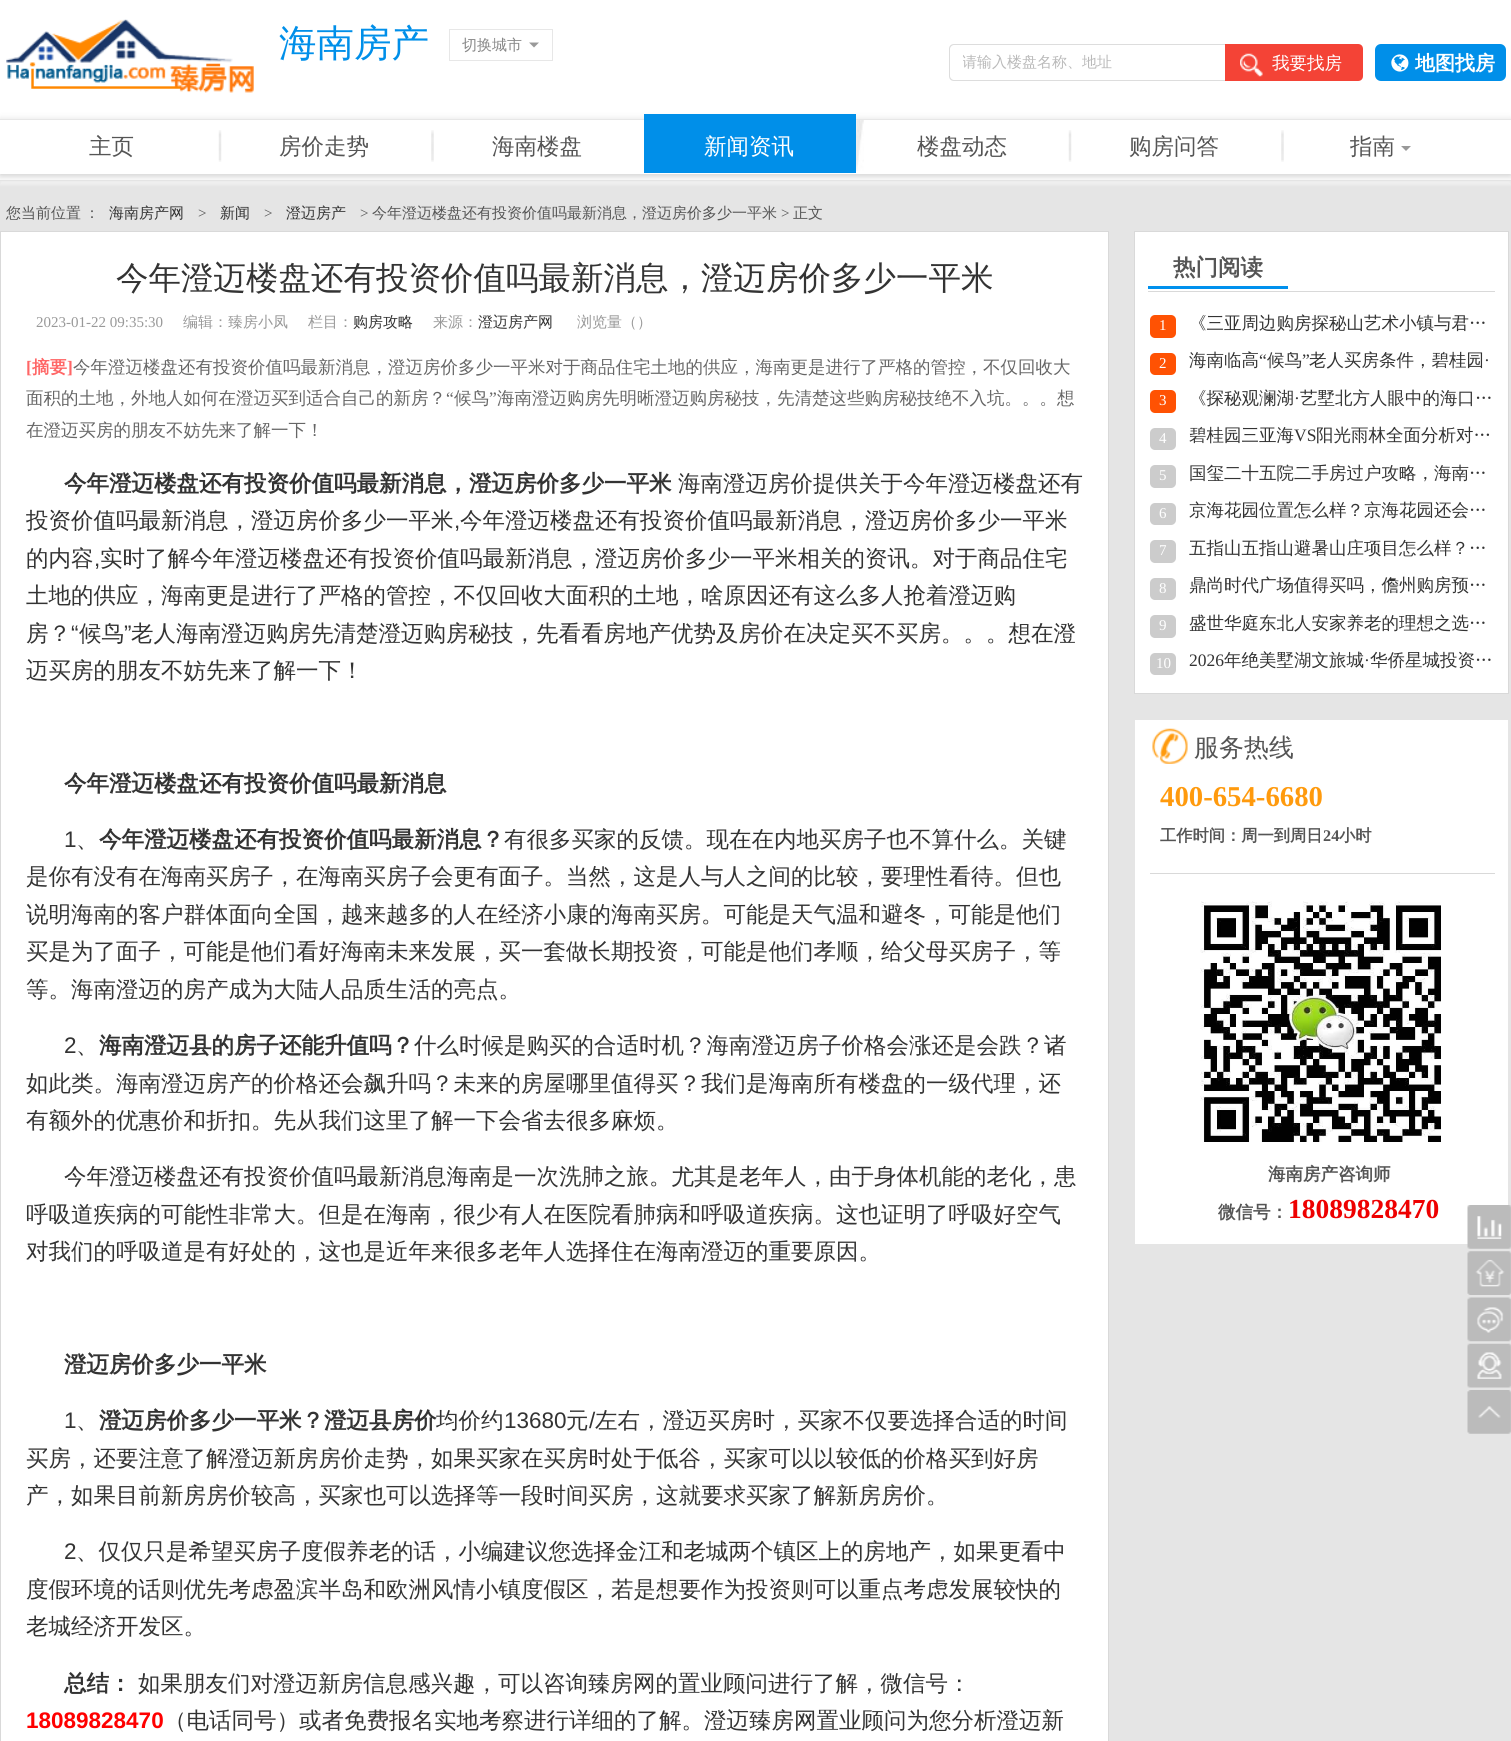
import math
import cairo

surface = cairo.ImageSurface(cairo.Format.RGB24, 1511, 1741)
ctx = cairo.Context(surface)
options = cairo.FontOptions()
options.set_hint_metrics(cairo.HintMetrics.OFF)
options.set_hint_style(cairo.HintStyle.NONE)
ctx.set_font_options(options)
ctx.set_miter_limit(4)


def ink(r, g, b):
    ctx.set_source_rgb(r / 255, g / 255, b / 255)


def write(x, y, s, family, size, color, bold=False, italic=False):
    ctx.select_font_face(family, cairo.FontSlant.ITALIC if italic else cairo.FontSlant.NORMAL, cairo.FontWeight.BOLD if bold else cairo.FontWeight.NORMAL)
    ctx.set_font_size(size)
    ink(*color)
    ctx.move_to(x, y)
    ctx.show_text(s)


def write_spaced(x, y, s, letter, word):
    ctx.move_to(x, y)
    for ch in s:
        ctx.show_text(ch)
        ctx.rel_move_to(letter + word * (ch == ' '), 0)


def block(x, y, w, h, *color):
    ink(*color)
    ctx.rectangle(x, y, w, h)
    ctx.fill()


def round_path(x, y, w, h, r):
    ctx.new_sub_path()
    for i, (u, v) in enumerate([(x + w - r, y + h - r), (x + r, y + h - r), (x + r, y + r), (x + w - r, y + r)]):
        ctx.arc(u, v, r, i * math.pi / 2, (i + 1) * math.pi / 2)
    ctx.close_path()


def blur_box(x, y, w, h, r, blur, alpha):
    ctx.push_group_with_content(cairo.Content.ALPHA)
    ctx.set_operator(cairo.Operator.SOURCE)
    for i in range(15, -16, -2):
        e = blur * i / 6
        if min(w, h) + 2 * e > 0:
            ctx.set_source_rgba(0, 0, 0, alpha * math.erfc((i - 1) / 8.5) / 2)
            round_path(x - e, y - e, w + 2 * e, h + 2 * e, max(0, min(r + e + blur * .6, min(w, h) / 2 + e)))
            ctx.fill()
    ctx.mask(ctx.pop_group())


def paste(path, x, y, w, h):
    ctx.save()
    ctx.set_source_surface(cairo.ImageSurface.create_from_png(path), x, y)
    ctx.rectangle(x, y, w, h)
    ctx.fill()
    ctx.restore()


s1 = dict(family="WenQuanYi Zen Hei Medium", size=37.5, color=(0, 143, 233))
s2 = dict(family="WenQuanYi Zen Hei Medium", size=15, color=(136, 136, 136))
s3 = dict(family="WenQuanYi Zen Hei Medium", size=15, color=(186, 186, 186))
s4 = dict(family="WenQuanYi Zen Hei Medium", size=17.5, color=(255, 255, 255))
s5 = dict(family="WenQuanYi Zen Hei", size=20, color=(255, 255, 255), bold=True)
s6 = dict(family="WenQuanYi Zen Hei Medium", size=22.5, color=(85, 85, 85))
s7 = dict(family="WenQuanYi Zen Hei Medium", size=22.5, color=(255, 255, 255))
s8 = dict(family="WenQuanYi Zen Hei Medium", size=15, color=(51, 51, 51))
s9 = dict(family="Liberation Serif", size=15, color=(85, 85, 85))
s10 = dict(family="WenQuanYi Zen Hei Medium", size=15, color=(85, 85, 85))
s11 = dict(family="WenQuanYi Zen Hei Medium", size=32.5, color=(51, 51, 51))
s12 = dict(family="Liberation Serif", size=15, color=(153, 153, 153))
s13 = dict(family="WenQuanYi Zen Hei Medium", size=15, color=(153, 153, 153))
s14 = dict(family="Liberation Serif", size=17.5, color=(255, 102, 102), bold=True)
s15 = dict(family="WenQuanYi Zen Hei", size=17.5, color=(255, 102, 102), bold=True)
s16 = dict(family="WenQuanYi Zen Hei Medium", size=17.5, color=(102, 102, 102))
s17 = dict(family="Liberation Serif", size=17.5, color=(102, 102, 102))
s18 = dict(family="WenQuanYi Zen Hei", size=22.5, color=(51, 51, 51), bold=True)
s19 = dict(family="WenQuanYi Zen Hei Medium", size=22.5, color=(51, 51, 51))
s20 = dict(family="Liberation Sans", size=22.5, color=(51, 51, 51))
s21 = dict(family="Liberation Sans", size=22.5, color=(255, 0, 0), bold=True)
s22 = dict(family="WenQuanYi Zen Hei", size=22.5, color=(85, 85, 85), bold=True)
s23 = dict(family="Liberation Serif", size=15, color=(255, 255, 255))
s24 = dict(family="WenQuanYi Zen Hei Medium", size=17.5, color=(51, 51, 51))
s25 = dict(family="Liberation Serif", size=17.5, color=(51, 51, 51))
s26 = dict(family="WenQuanYi Zen Hei Medium", size=25, color=(85, 85, 85))
s27 = dict(family="Liberation Serif", size=28.75, color=(255, 154, 13), bold=True)
s28 = dict(family="WenQuanYi Zen Hei", size=16.25, color=(85, 85, 85), bold=True)
s29 = dict(family="Liberation Serif", size=16.25, color=(85, 85, 85), bold=True)
s30 = dict(family="WenQuanYi Zen Hei", size=17.5, color=(85, 85, 85), bold=True)
s31 = dict(family="Liberation Serif", size=27.5, color=(238, 0, 0), bold=True)

ink(229, 229, 229)
ctx.paint()
ink(241, 241, 241)
blur_box(0, 4, 1511, 181, 0, 1, 1)
block(0, 0, 1511, 180, 255, 255, 255)
block(0, 180, 1511, 1, 234, 234, 234)
paste("pic1.png", 6, 19, 248, 74)
write(279, 56, "海南房产", **s1)
ctx.rectangle(449.5, 29.5, 103, 31)
ink(231, 231, 231)
ctx.set_line_width(1)
ctx.stroke()
write(462, 50, "切换城市", **s2)
ink(153, 153, 153)
ctx.new_path()
ctx.move_to(529, 42.5)
ctx.line_to(539, 42.5)
ctx.line_to(534, 47.5)
ctx.close_path()
ctx.fill()
ink(221, 221, 221)
ctx.set_fill_rule(cairo.FillRule.EVEN_ODD)
ctx.new_path()
ctx.move_to(954, 44)
ctx.line_to(1225, 44)
ctx.line_to(1225, 81)
ctx.line_to(954, 81)
ctx.curve_to(951, 81, 949, 79, 949, 76)
ctx.line_to(949, 49)
ctx.curve_to(949, 46, 951, 44, 954, 44)
ctx.close_path()
ctx.move_to(954, 45)
ctx.line_to(1225, 45)
ctx.line_to(1225, 80)
ctx.line_to(954, 80)
ctx.curve_to(952, 80, 950, 78, 950, 76)
ctx.line_to(950, 49)
ctx.curve_to(950, 47, 952, 45, 954, 45)
ctx.close_path()
ctx.fill()
ctx.save()
ctx.set_fill_rule(cairo.FillRule.WINDING)
ctx.rectangle(963, 53, 250, 21)
ctx.clip()
write(962, 67, "请输入楼盘名称、地址", **s3)
ctx.restore()
ink(244, 67, 54)
ctx.new_path()
ctx.move_to(1225, 44)
ctx.line_to(1358, 44)
ctx.curve_to(1361, 44, 1363, 46, 1363, 49)
ctx.line_to(1363, 76)
ctx.curve_to(1363, 79, 1361, 81, 1358, 81)
ctx.line_to(1225, 81)
ctx.close_path()
ctx.fill()
paste("pic2.png", 1240, 53, 23, 24)
write(1272, 69, "我要找房", **s4)
ink(0, 143, 233)
round_path(1375, 44, 131, 37, 6)
ctx.fill()
paste("pic3.png", 1391, 54, 18, 18)
write(1415, 70, "地图找房", **s5)
ink(0, 0, 0)
blur_box(0, 121, 1511, 55, 0, 4, 0.2)
block(0, 120, 1511, 54, 255, 255, 255)
block(0, 119, 1511, 1, 231, 231, 231)
write(89, 154, "主页", **s6)
paste("pic4.png", 218, 130, 4, 32)
write(279, 154, "房价走势", **s6)
paste("pic5.png", 431, 130, 3, 32)
write(492, 154, "海南楼盘", **s6)
block(644, 114, 212, 59, 0, 143, 233)
write(704, 154, "新闻资讯", **s7)
paste("pic7.png", 856, 130, 1, 32)
paste("pic6.png", 856, 120, 8, 51)
write(917, 154, "楼盘动态", **s6)
paste("pic4.png", 1068, 130, 4, 32)
write(1129, 154, "购房问答", **s6)
paste("pic5.png", 1281, 130, 3, 32)
write(1350, 154, "指南", **s6)
ink(153, 153, 153)
ctx.set_fill_rule(cairo.FillRule.WINDING)
ctx.new_path()
ctx.move_to(1401, 146)
ctx.line_to(1411, 146)
ctx.line_to(1406, 151)
ctx.close_path()
ctx.fill()
ctx.set_font_size(15)
ink(85, 85, 85)
write_spaced(6, 218, "您当前位置 ：", 0, -1)
write(109, 218, "海南房产网", **s8)
write(198, 218, ">", **s9)
write(220, 218, "新闻", **s8)
write(264, 218, ">", **s9)
write(286, 218, "澄迈房产", **s8)
write(360, 218, ">", **s9)
write(372, 218, "今年澄迈楼盘还有投资价值吗最新消息，澄迈房价多少一平米", **s10)
write(781, 218, ">", **s9)
write(793, 218, "正文", **s10)
ink(255, 255, 255)
ctx.rectangle(0.5, 231.5, 1108, 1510)
ctx.fill_preserve()
ink(217, 217, 217)
ctx.stroke()
write(116, 289, "今年澄迈楼盘还有投资价值吗最新消息，澄迈房价多少一平米", **s11)
write(36, 327, "2023-01-22 09:35:30", **s12)
write(183, 327, "编辑：臻房小凤", **s13)
write(308, 327, "栏目：", **s13)
write(353, 327, "购房攻略", **s8)
write(433, 327, "来源：", **s13)
write(478, 327, "澄迈房产网", **s8)
write(577, 327, "浏览量（）", **s13)
write(26, 373, "[", **s14)
write(32, 373, "摘要", **s15)
write(67, 373, "]", **s14)
write(73, 373, "今年澄迈楼盘还有投资价值吗最新消息，澄迈房价多少一平米对于商品住宅土地的供应，海南更是进行了严格的管控，不仅回收大", **s16)
write(26, 404, "面积的土地，外地人如何在澄迈买到适合自己的新房？", **s16)
write(446, 404, "“", **s17)
write(454, 404, "候鸟", **s16)
write(489, 404, "”", **s17)
write(497, 404, "海南澄迈购房先明晰澄迈购房秘技，先清楚这些购房秘技绝不入坑。。。想", **s16)
write(26, 436, "在澄迈买房的朋友不妨先来了解一下！", **s16)
write(64, 491, "今年澄迈楼盘还有投资价值吗最新消息，澄迈房价多少一平米", **s18)
write(678, 491, "海南澄迈房价提供关于今年澄迈楼盘还有", **s19)
write(26, 528, "投资价值吗最新消息，澄迈房价多少一平米", **s19)
write(454, 528, ",", **s20)
write(460, 528, "今年澄迈楼盘还有投资价值吗最新消息，澄迈房价多少一平米", **s19)
write(26, 566, "的内容", **s19)
write(94, 566, ",", **s20)
write(100, 566, "实时了解今年澄迈楼盘还有投资价值吗最新消息，澄迈房价多少一平米相关的资讯。对于商品住宅", **s19)
write(26, 603, "土地的供应，海南更是进行了严格的管控，不仅回收大面积的土地，啥原因还有这么多人抢着澄迈购", **s19)
write(26, 641, "房？", **s19)
write(71, 641, "“", **s20)
write(79, 641, "候鸟", **s19)
write(124, 641, "”", **s20)
write(131, 641, "老人海南澄迈购房先清楚澄迈购房秘技，先看看房地产优势及房价在决定买不买房。。。想在澄", **s19)
write(26, 678, "迈买房的朋友不妨先来了解一下！", **s19)
write(64, 791, "今年澄迈楼盘还有投资价值吗最新消息", **s18)
write(64, 847, "1", **s20)
write(99, 847, "今年澄迈楼盘还有投资价值吗最新消息？", **s18)
write(504, 847, "有很多买家的反馈。现在在内地买房子也不算什么。关键", **s19)
write(76, 847, "、", **s19)
write(26, 884, "是你有没有在海南买房子，在海南买房子会更有面子。当然，这是人与人之间的比较，要理性看待。但也", **s19)
write(26, 922, "说明海南的客户群体面向全国，越来越多的人在经济小康的海南买房。可能是天气温和避冬，可能是他们", **s19)
write(26, 959, "买是为了面子，可能是他们看好海南未来发展，买一套做长期投资，可能是他们孝顺，给父母买房子，等", **s19)
write(26, 997, "等。海南澄迈的房产成为大陆人品质生活的亮点。", **s19)
write(64, 1053, "2", **s20)
write(99, 1053, "海南澄迈县的房子还能升值吗？", **s18)
write(414, 1053, "什么时候是购买的合适时机？海南澄迈房子价格会涨还是会跌？诸", **s19)
write(76, 1053, "、", **s19)
write(26, 1091, "如此类。海南澄迈房产的价格还会飙升吗？未来的房屋哪里值得买？我们是海南所有楼盘的一级代理，还", **s19)
write(26, 1128, "有额外的优惠价和折扣。先从我们这里了解一下会省去很多麻烦。", **s19)
write(64, 1184, "今年澄迈楼盘还有投资价值吗最新消息海南是一次洗肺之旅。尤其是老年人，由于身体机能的老化，患", **s19)
write(26, 1222, "呼吸道疾病的可能性非常大。但是在海南，很少有人在医院看肺病和呼吸道疾病。这也证明了呼吸好空气", **s19)
write(26, 1259, "对我们的呼吸道是有好处的，这也是近年来很多老年人选择住在海南澄迈的重要原因。", **s19)
write(64, 1372, "澄迈房价多少一平米", **s18)
write(64, 1428, "1", **s20)
write(76, 1428, "、", **s19)
write(99, 1428, "澄迈房价多少一平米？澄迈县房价", **s18)
write(436, 1428, "均价约", **s19)
write(504, 1428, "13680", **s20)
write(566, 1428, "元", **s19)
write(589, 1428, "/", **s20)
write(595, 1428, "左右，澄迈买房时，买家不仅要选择合适的时间", **s19)
write(26, 1466, "买房，还要注意了解澄迈新房房价走势，如果买家在买房时处于低谷，买家可以以较低的价格买到好房", **s19)
write(26, 1503, "产，如果目前新房房价较高，买家也可以选择等一段时间买房，这就要求买家了解新房房价。", **s19)
write(64, 1559, "2", **s20)
write(76, 1559, "、仅仅只是希望买房子度假养老的话，小编建议您选择金江和老城两个镇区上的房地产，如果更看中", **s19)
write(26, 1597, "度假环境的话则优先考虑盈滨半岛和欧洲风情小镇度假区，若是想要作为投资则可以重点考虑发展较快的", **s19)
write(26, 1634, "老城经济开发区。", **s19)
write(64, 1691, "总结：", **s18)
write(138, 1691, "如果朋友们对澄迈新房信息感兴趣，可以咨询臻房网的置业顾问进行了解，微信号：", **s19)
write(26, 1728, "18089828470", **s21)
write(164, 1728, "（电话同号）或者免费报名实地考察进行详细的了解。澄迈臻房网置业顾问为您分析澄迈新", **s19)
ink(255, 255, 255)
ctx.rectangle(1134.5, 231.5, 374, 462)
ctx.fill_preserve()
ink(217, 217, 217)
ctx.stroke()
block(1148, 291, 347, 1, 217, 217, 217)
write(1173, 275, "热门阅读", **s22)
block(1148, 286, 140, 3, 0, 144, 237)
ink(255, 82, 3)
round_path(1150, 315, 26, 23, 5)
ctx.fill()
write(1159, 330, "1", **s23)
write(1189, 329, "《三亚周边购房探秘山艺术小镇与君…", **s24)
write(1189, 366, "海南临高", **s24)
write(1259, 366, "“", **s25)
write(1267, 366, "候鸟", **s24)
write(1302, 366, "”", **s25)
write(1309, 366, "老人买房条件，碧桂园", **s24)
ink(255, 82, 3)
round_path(1150, 353, 26, 22, 5)
ctx.fill()
write(1159, 368, "2", **s23)
write(1484, 366, "·", **s25)
ink(255, 82, 3)
round_path(1150, 390, 26, 23, 5)
ctx.fill()
write(1159, 405, "3", **s23)
write(1189, 404, "《探秘观澜湖", **s24)
write(1294, 404, "·", **s25)
write(1300, 404, "艺墅北方人眼中的海口…", **s24)
ink(204, 204, 204)
round_path(1150, 428, 26, 22, 5)
ctx.fill()
write(1159, 443, "4", **s23)
write(1189, 441, "碧桂园三亚海", **s24)
write(1294, 441, "VS", **s25)
write(1316, 441, "阳光雨林全面分析对…", **s24)
ink(204, 204, 204)
round_path(1150, 465, 26, 23, 5)
ctx.fill()
write(1159, 480, "5", **s23)
write(1189, 479, "国玺二十五院二手房过户攻略，海南…", **s24)
ink(204, 204, 204)
round_path(1150, 503, 26, 22, 5)
ctx.fill()
write(1159, 518, "6", **s23)
write(1189, 516, "京海花园位置怎么样？京海花园还会…", **s24)
ink(204, 204, 204)
round_path(1150, 540, 26, 23, 5)
ctx.fill()
write(1159, 555, "7", **s23)
write(1189, 554, "五指山五指山避暑山庄项目怎么样？…", **s24)
ink(204, 204, 204)
round_path(1150, 578, 26, 22, 5)
ctx.fill()
write(1159, 593, "8", **s23)
write(1189, 591, "鼎尚时代广场值得买吗，儋州购房预…", **s24)
ink(204, 204, 204)
round_path(1150, 615, 26, 23, 5)
ctx.fill()
write(1159, 630, "9", **s23)
write(1189, 629, "盛世华庭东北人安家养老的理想之选…", **s24)
ink(204, 204, 204)
round_path(1150, 653, 26, 22, 5)
ctx.fill()
write(1156, 668, "10", **s23)
write(1189, 666, "2026", **s25)
write(1224, 666, "年绝美墅湖文旅城", **s24)
write(1364, 666, "·", **s25)
write(1370, 666, "华侨星城投资…", **s24)
block(1135, 720, 373, 524, 255, 255, 255)
paste("pic8.png", 1152, 728, 36, 36)
write(1194, 756, "服务热线", **s26)
write(1160, 806, "400-654-6680", **s27)
write(1160, 841, "工作时间：周一到周日", **s28)
write(1323, 841, "24", **s29)
write(1339, 841, "小时", **s28)
block(1150, 873, 345, 1, 217, 217, 217)
paste("pic9.png", 1200, 901, 241, 241)
write(1268, 1180, "海南房产咨询师", **s30)
write(1218, 1218, "微信号：", **s30)
write(1288, 1218, "18089828470", **s31)
paste("pic10.png", 1467, 1205, 44, 44)
paste("pic11.png", 1477, 1216, 25, 23)
paste("pic12.png", 1467, 1251, 44, 44)
paste("pic13.png", 1467, 1297, 44, 45)
paste("pic14.png", 1467, 1343, 44, 45)
paste("pic15.png", 1467, 1390, 44, 44)
surface.write_to_png("screenshot.png")
